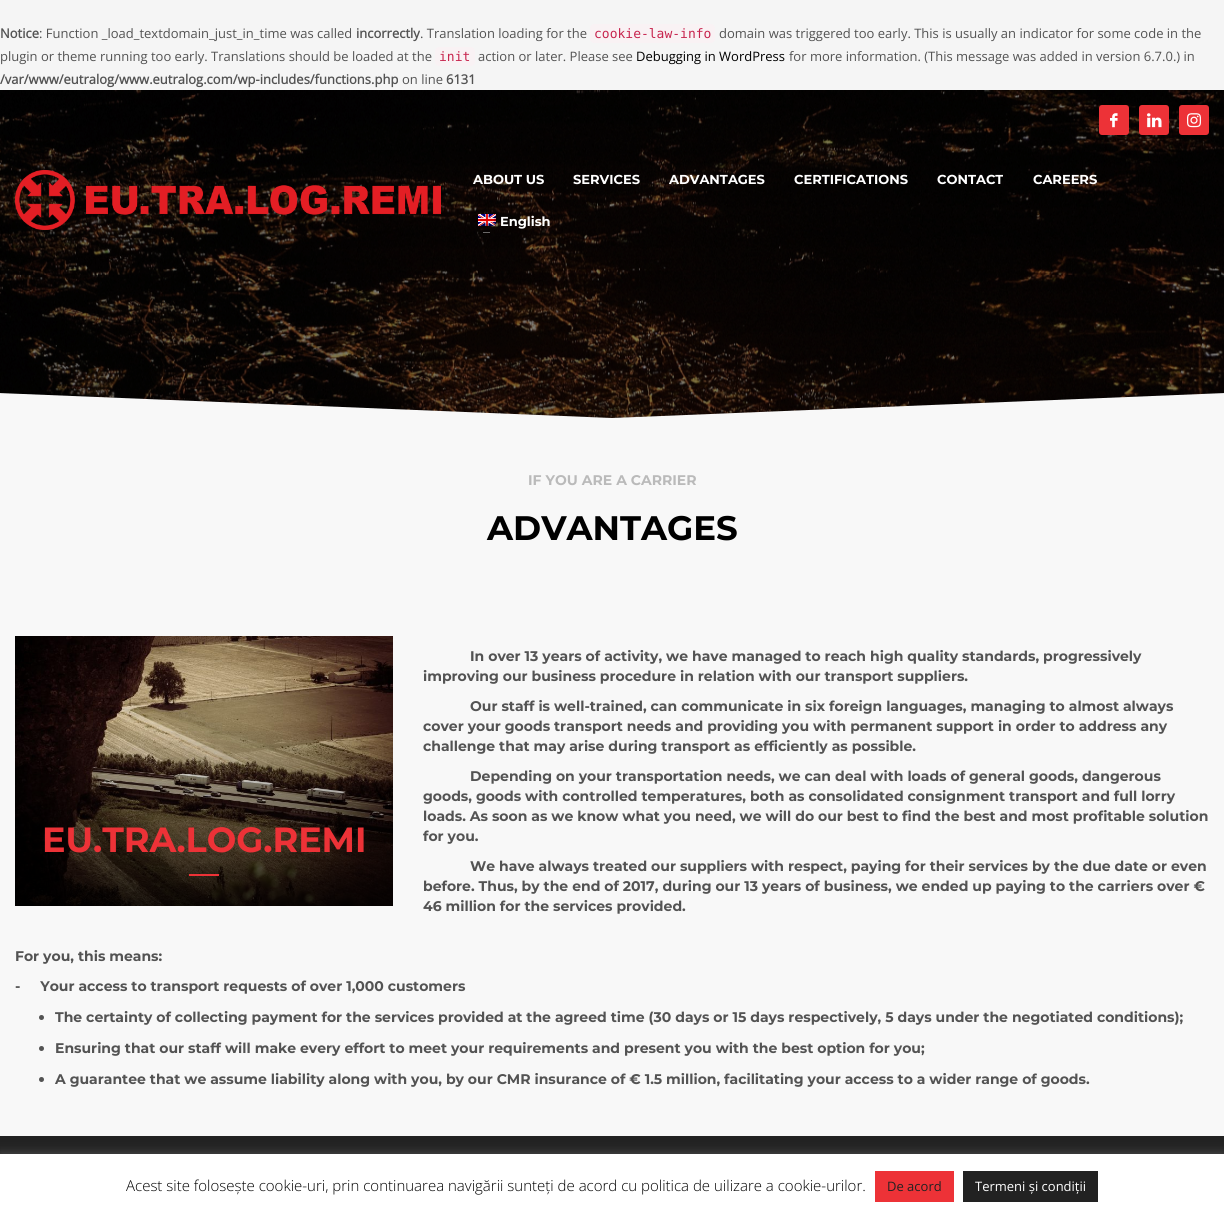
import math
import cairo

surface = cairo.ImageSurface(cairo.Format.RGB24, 1224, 1214)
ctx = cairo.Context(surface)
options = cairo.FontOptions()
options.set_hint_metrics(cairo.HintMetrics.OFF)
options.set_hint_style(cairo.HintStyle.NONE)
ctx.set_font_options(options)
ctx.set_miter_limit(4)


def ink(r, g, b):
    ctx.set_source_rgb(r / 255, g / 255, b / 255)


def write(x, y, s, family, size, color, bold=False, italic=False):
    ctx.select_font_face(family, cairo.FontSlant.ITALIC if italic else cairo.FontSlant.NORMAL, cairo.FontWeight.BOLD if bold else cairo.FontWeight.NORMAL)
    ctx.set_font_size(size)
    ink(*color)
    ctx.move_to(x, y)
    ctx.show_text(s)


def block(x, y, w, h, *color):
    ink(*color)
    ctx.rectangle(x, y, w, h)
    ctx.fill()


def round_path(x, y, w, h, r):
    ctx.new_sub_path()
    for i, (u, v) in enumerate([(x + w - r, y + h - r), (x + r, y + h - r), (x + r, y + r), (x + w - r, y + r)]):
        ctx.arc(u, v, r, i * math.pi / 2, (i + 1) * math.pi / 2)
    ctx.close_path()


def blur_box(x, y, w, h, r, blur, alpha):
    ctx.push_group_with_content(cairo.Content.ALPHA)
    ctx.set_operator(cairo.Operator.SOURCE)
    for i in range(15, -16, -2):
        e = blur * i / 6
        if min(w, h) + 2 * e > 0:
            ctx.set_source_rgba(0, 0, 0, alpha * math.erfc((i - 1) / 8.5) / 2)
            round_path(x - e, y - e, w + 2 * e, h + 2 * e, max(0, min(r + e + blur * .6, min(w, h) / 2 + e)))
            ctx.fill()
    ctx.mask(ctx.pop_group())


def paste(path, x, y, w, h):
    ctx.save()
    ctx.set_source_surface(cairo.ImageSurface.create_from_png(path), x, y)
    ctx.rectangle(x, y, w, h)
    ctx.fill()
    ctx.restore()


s1 = dict(family="Open Sans", size=13, color=(83, 83, 83), bold=True)
s2 = dict(family="Open Sans", size=13, color=(83, 83, 83))
s3 = dict(family="DejaVu Sans Mono", size=13, color=(199, 37, 78))
s4 = dict(family="Open Sans", size=13, color=(0, 0, 0))
s5 = dict(family="Montserrat", size=13, color=(255, 255, 255), bold=True)
s6 = dict(family="Montserrat", size=14, color=(186, 186, 186), bold=True)
s7 = dict(family="Montserrat", size=34, color=(0, 0, 0), bold=True)
s8 = dict(family="Montserrat", size=35, color=(237, 50, 55), bold=True)
s9 = dict(family="Montserrat", size=14, color=(83, 83, 83), bold=True)
s10 = dict(family="Open Sans Light", size=15, color=(0, 0, 0))
s11 = dict(family="Open Sans", size=13, color=(34, 34, 34))
s12 = dict(family="Open Sans", size=13, color=(255, 255, 255))

ink(245, 245, 245)
ctx.paint()
write(0, 38, "Notice", **s1)
write(39, 38, ": Function _load_textdomain_just_in_time was called", **s2)
write(356, 38, "incorrectly", **s1)
write(420, 38, ". Translation loading for the", **s2)
ink(249, 242, 244)
round_path(590, 24, 125, 19, 4)
ctx.fill()
write(594, 38, "cookie-law-info", **s3)
write(719, 38, "domain was triggered too early. This is usually an indicator for some code in the", **s2)
write(0, 61, "plugin or theme running too early. Translations should be loaded at the", **s2)
ink(249, 242, 244)
round_path(435, 47, 40, 19, 4)
ctx.fill()
write(439, 61, "init", **s3)
write(478, 61, "action or later. Please see", **s2)
write(636, 61, "Debugging in WordPress", **s4)
write(789, 61, "for more information. (This message was added in version 6.7.0.) in", **s2)
write(0, 84, "/var/www/eutralog/www.eutralog.com/wp-includes/functions.php", **s1)
write(402, 84, "on line", **s2)
write(446, 84, "6131", **s1)
paste("pic6.png", 0, 90, 1224, 328)
paste("pic1.png", 15, 170, 426, 60)
ink(237, 50, 55)
round_path(1099, 105, 30, 30, 3)
ctx.fill()
paste("pic2.png", 1110, 113, 8, 15)
round_path(1139, 105, 30, 30, 3)
ctx.fill()
paste("pic3.png", 1147, 113, 15, 15)
round_path(1179, 105, 30, 30, 3)
ctx.fill()
paste("pic4.png", 1187, 113, 14, 15)
write(473, 184, "ABOUT US", **s5)
write(573, 184, "SERVICES", **s5)
write(669, 184, "ADVANTAGES", **s5)
write(794, 184, "CERTIFICATIONS", **s5)
write(937, 184, "CONTACT", **s5)
write(1033, 184, "CAREERS", **s5)
paste("pic5.png", 478, 214, 18, 12)
write(500, 226, "English", **s5)
block(483, 232, 7, 1, 106, 104, 103)
ink(248, 248, 248)
ctx.new_path()
ctx.move_to(-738, 420)
ctx.line_to(-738, 363)
ctx.line_to(612, 418)
ctx.line_to(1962, 363)
ctx.line_to(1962, 420)
ctx.close_path()
ctx.fill()
block(0, 420, 1224, 716, 248, 248, 248)
write(528, 485, "IF YOU ARE A CARRIER", **s6)
write(487, 540, "ADVANTAGES", **s7)
paste("pic7.png", 15, 636, 378, 270)
write(42, 852, "EU.TRA.LOG.REMI", **s8)
block(189, 874, 30, 2, 237, 50, 55)
write(470, 661, "In over 13 years of activity, we have managed to reach high quality standards, progressively", **s9)
write(423, 681, "improving our business procedure in relation with our transport suppliers.", **s9)
write(470, 711, "Our staff is well-trained, can communicate in six foreign languages, managing to almost always", **s9)
write(423, 731, "cover your goods transport needs and providing you with permanent support in order to address any", **s9)
write(423, 751, "challenge that may arise during transport as efficiently as possible.", **s9)
write(470, 781, "Depending on your transportation needs, we can deal with loads of general goods, dangerous", **s9)
write(423, 801, "goods, goods with controlled temperatures, both as consolidated consignment transport and full lorry", **s9)
write(423, 821, "loads. As soon as we know what you need, we will do our best to find the best and most profitable solution", **s9)
write(423, 841, "for you.", **s9)
write(470, 871, "We have always treated our suppliers with respect, paying for their services by the due date or even", **s9)
write(423, 891, "before. Thus, by the end of 2017, during our 13 years of business, we ended up paying to the carriers over €", **s9)
write(423, 911, "46 million for the services provided.", **s9)
write(15, 961, "For you, this means:", **s9)
write(15, 991, "-     Your access to transport requests of over 1,000 customers", **s9)
ctx.new_path()
ctx.arc(41.5, 1017.5, 2.5, 0, 2 * math.pi)
ctx.fill()
write(55, 1022, "The certainty of collecting payment for the services provided at the agreed time (30 days or 15 days respectively, 5 days under the negotiated conditions);", **s9)
ctx.new_path()
ctx.arc(41.5, 1048.5, 2.5, 0, 2 * math.pi)
ctx.fill()
write(55, 1053, "Ensuring that our staff will make every effort to meet your requirements and present you with the best option for you;", **s9)
ctx.new_path()
ctx.arc(41.5, 1079.5, 2.5, 0, 2 * math.pi)
ctx.fill()
write(55, 1084, "A guarantee that we assume liability along with you, by our CMR insurance of € 1.5 million, facilitating your access to a wider range of goods.", **s9)
block(0, 1136, 1224, 18, 34, 34, 34)
ink(172, 171, 171)
blur_box(0, 1153, 1224, 60, 0, 5, 0.3)
block(0, 1154, 1224, 60, 255, 255, 255)
write(126, 1191, "Acest site folosește cookie-uri, prin continuarea navigării sunteți de acord cu politica de uilizare a cookie-urilor.", **s10)
block(875, 1171, 79, 31, 237, 50, 55)
write(887, 1191, "De acord", **s11)
block(963, 1171, 135, 31, 34, 34, 34)
write(975, 1191, "Termeni și condiții", **s12)
surface.write_to_png("screenshot.png")
